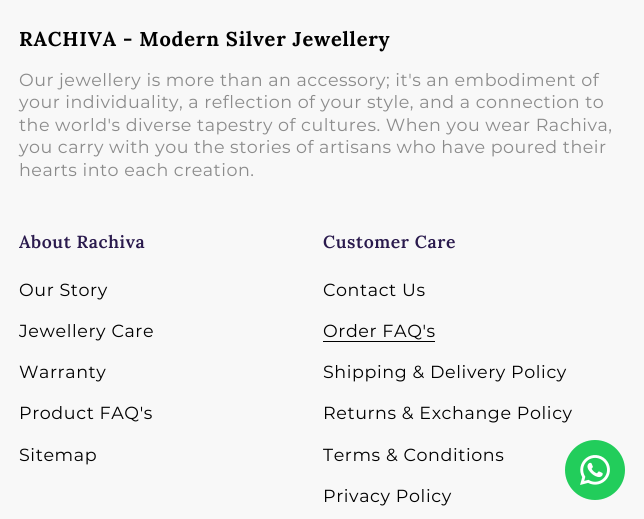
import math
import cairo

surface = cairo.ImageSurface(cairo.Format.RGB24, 644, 519)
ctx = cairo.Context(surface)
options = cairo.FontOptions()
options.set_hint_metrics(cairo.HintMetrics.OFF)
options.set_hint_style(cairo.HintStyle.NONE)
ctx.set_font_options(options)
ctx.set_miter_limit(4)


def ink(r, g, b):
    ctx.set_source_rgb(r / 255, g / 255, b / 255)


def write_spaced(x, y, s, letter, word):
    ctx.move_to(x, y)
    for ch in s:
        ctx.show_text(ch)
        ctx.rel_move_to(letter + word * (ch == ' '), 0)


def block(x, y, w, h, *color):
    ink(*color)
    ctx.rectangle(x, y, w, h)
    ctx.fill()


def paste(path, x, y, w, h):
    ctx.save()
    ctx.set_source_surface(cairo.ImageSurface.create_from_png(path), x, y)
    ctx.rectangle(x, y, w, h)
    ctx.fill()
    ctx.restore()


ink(248, 248, 248)
ctx.paint()
ctx.select_font_face("Lora", cairo.FontSlant.NORMAL, cairo.FontWeight.BOLD)
ctx.set_font_size(20)
ink(0, 0, 0)
write_spaced(19, 46, "RACHIVA - Modern Silver Jewellery", 0.8, 0)
ctx.select_font_face("Montserrat")
ctx.set_font_size(17.5)
ink(139, 139, 139)
write_spaced(19, 86, "Our jewellery is more than an accessory; it's an embodiment of", 0.5, 0)
write_spaced(19, 108, "your individuality, a reflection of your style, and a connection to", 0.5, 0)
write_spaced(19, 131, "the world's diverse tapestry of cultures. When you wear Rachiva,", 0.5, 0)
write_spaced(19, 153, "you carry with you the stories of artisans who have poured their", 0.5, 0)
write_spaced(19, 176, "hearts into each creation.", 0.5, 0)
ctx.select_font_face("Lora SemiBold")
ink(42, 26, 77)
write_spaced(19, 248, "About Rachiva", 0.6, 0)
ctx.select_font_face("Montserrat")
ink(0, 0, 0)
write_spaced(19, 296, "Our Story", 0.6, 0)
write_spaced(19, 337, "Jewellery Care", 0.6, 0)
write_spaced(19, 378, "Warranty", 0.6, 0)
write_spaced(19, 419, "Product FAQ's", 0.6, 0)
write_spaced(19, 461, "Sitemap", 0.6, 0)
ctx.select_font_face("Lora SemiBold")
ink(42, 26, 77)
write_spaced(323, 248, "Customer Care", 0.6, 0)
ctx.select_font_face("Montserrat")
ink(0, 0, 0)
write_spaced(323, 296, "Contact Us", 0.6, 0)
write_spaced(323, 337, "Order FAQ's", 0.6, 0)
block(323, 341, 112, 1, 0, 0, 0)
write_spaced(323, 378, "Shipping & Delivery Policy", 0.6, 0)
write_spaced(323, 419, "Returns & Exchange Policy", 0.6, 0)
write_spaced(323, 461, "Terms & Conditions", 0.6, 0)
write_spaced(323, 502, "Privacy Policy", 0.6, 0)
ink(34, 205, 91)
ctx.new_path()
ctx.arc(595, 470, 30, 0, 2 * math.pi)
ctx.fill()
paste("pic1.png", 580, 455, 30, 30)
surface.write_to_png("screenshot.png")
